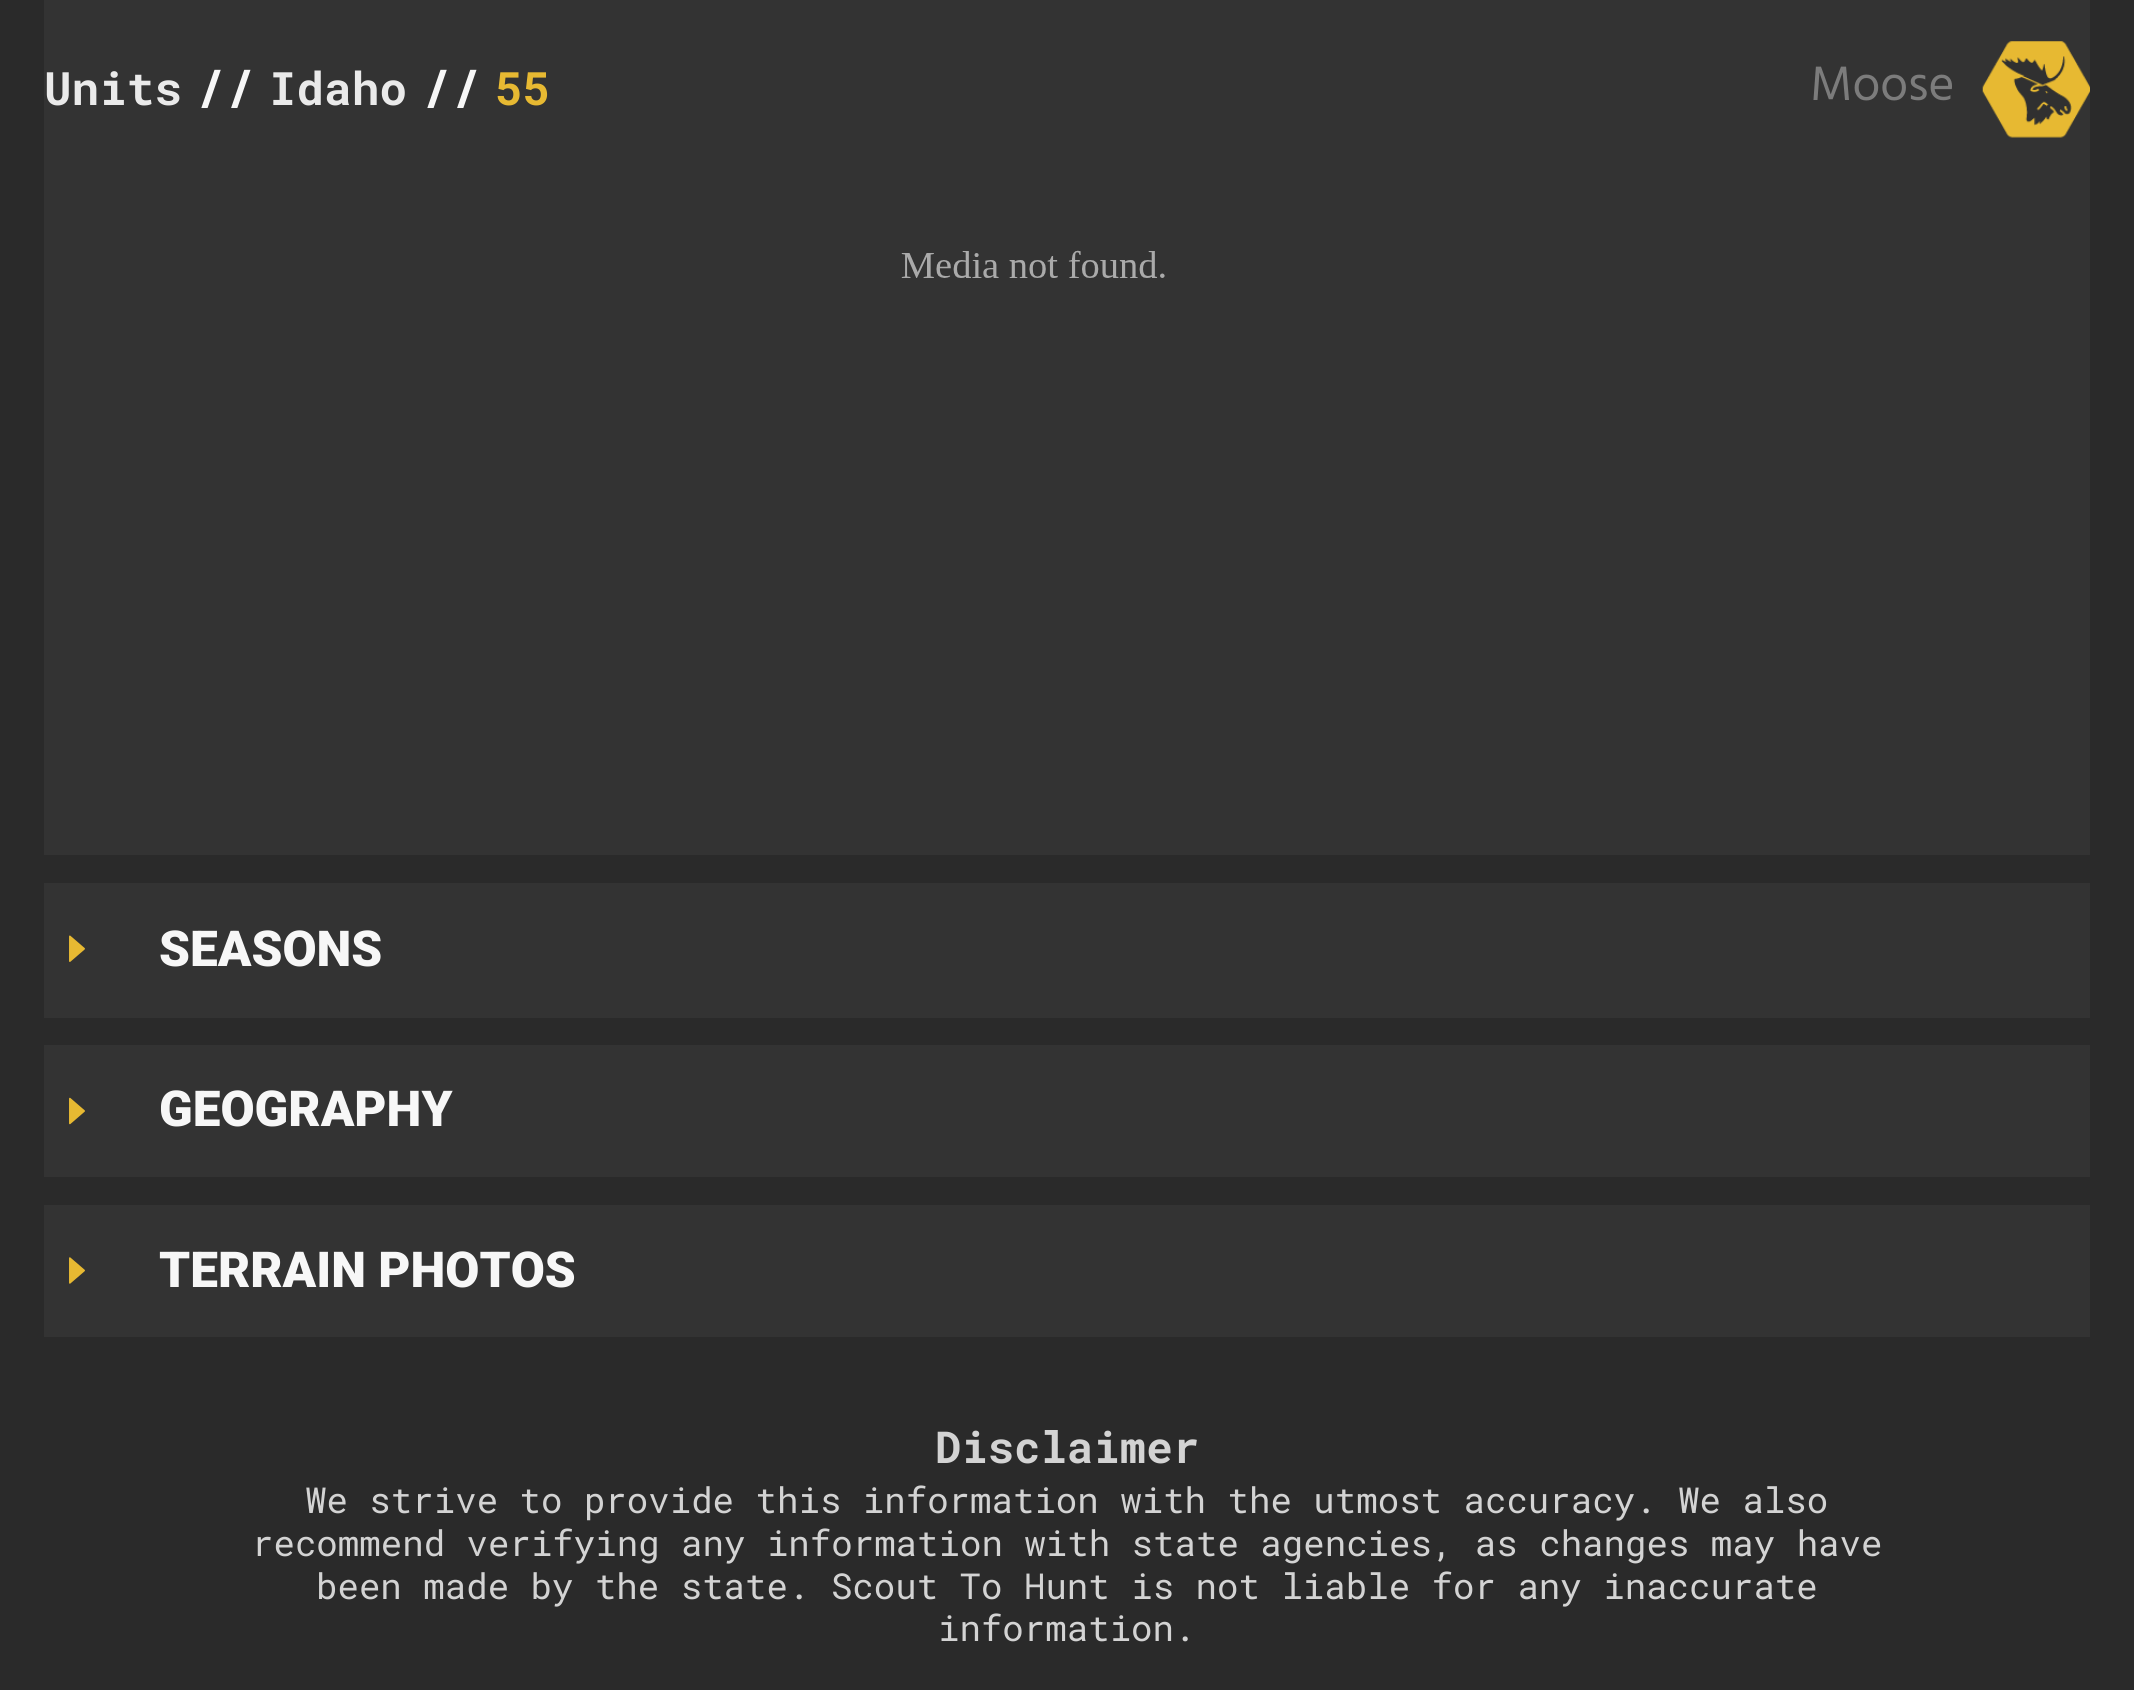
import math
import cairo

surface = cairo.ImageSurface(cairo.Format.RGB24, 2134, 1690)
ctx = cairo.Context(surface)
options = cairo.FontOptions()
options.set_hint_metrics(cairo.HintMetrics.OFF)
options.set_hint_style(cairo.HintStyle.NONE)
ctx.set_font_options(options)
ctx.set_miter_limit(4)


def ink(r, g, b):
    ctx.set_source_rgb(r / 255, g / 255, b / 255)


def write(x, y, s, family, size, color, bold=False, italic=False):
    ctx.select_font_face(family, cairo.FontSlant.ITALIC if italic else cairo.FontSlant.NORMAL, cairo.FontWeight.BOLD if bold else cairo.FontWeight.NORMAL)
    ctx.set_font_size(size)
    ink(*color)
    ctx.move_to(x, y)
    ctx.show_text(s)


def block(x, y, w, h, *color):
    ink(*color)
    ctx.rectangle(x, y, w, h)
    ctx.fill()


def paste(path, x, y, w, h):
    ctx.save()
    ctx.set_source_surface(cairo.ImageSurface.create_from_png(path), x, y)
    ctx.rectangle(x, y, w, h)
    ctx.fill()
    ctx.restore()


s1 = dict(family="Roboto Mono", size=46, color=(234, 234, 234), bold=True)
s2 = dict(family="Roboto Mono", size=49.5, color=(247, 247, 247), bold=True)
s3 = dict(family="Roboto Mono", size=46, color=(231, 185, 50), bold=True)
s4 = dict(family="Hind", size=49.5, color=(124, 124, 124))
s5 = dict(family="Roboto Black", size=49.5, color=(247, 247, 247))
s6 = dict(family="Roboto Mono", size=44, color=(211, 211, 211), bold=True)
s7 = dict(family="Roboto Mono", size=35.75, color=(211, 211, 211))

ink(42, 42, 42)
ctx.paint()
block(44, 0, 2046, 855, 51, 51, 51)
write(44, 105, "Units", **s1)
write(196, 105, "//", **s2)
write(269, 105, "Idaho", **s1)
write(422, 105, "//", **s2)
write(495, 105, "55", **s3)
write(1810, 100, "Moose", **s4)
paste("pic1.png", 1982, 41, 108, 97)
paste("pic2.png", 901, 250, 264, 28)
block(44, 883, 2046, 135, 51, 51, 51)
paste("pic3.png", 69, 935, 16, 27)
write(159, 966, "SEASONS", **s5)
block(44, 1045, 2046, 132, 51, 51, 51)
paste("pic4.png", 69, 1097, 16, 28)
write(159, 1126, "GEOGRAPHY", **s5)
block(44, 1205, 2046, 132, 51, 51, 51)
paste("pic5.png", 69, 1257, 16, 27)
write(159, 1287, "TERRAIN PHOTOS", **s5)
write(935, 1463, "Disclaimer", **s6)
write(305, 1513, "We strive to provide this information with the utmost accuracy. We also", **s7)
write(252, 1556, "recommend verifying any information with state agencies, as changes may have", **s7)
write(316, 1599, "been made by the state. Scout To Hunt is not liable for any inaccurate", **s7)
write(938, 1641, "information.", **s7)
surface.write_to_png("screenshot.png")
